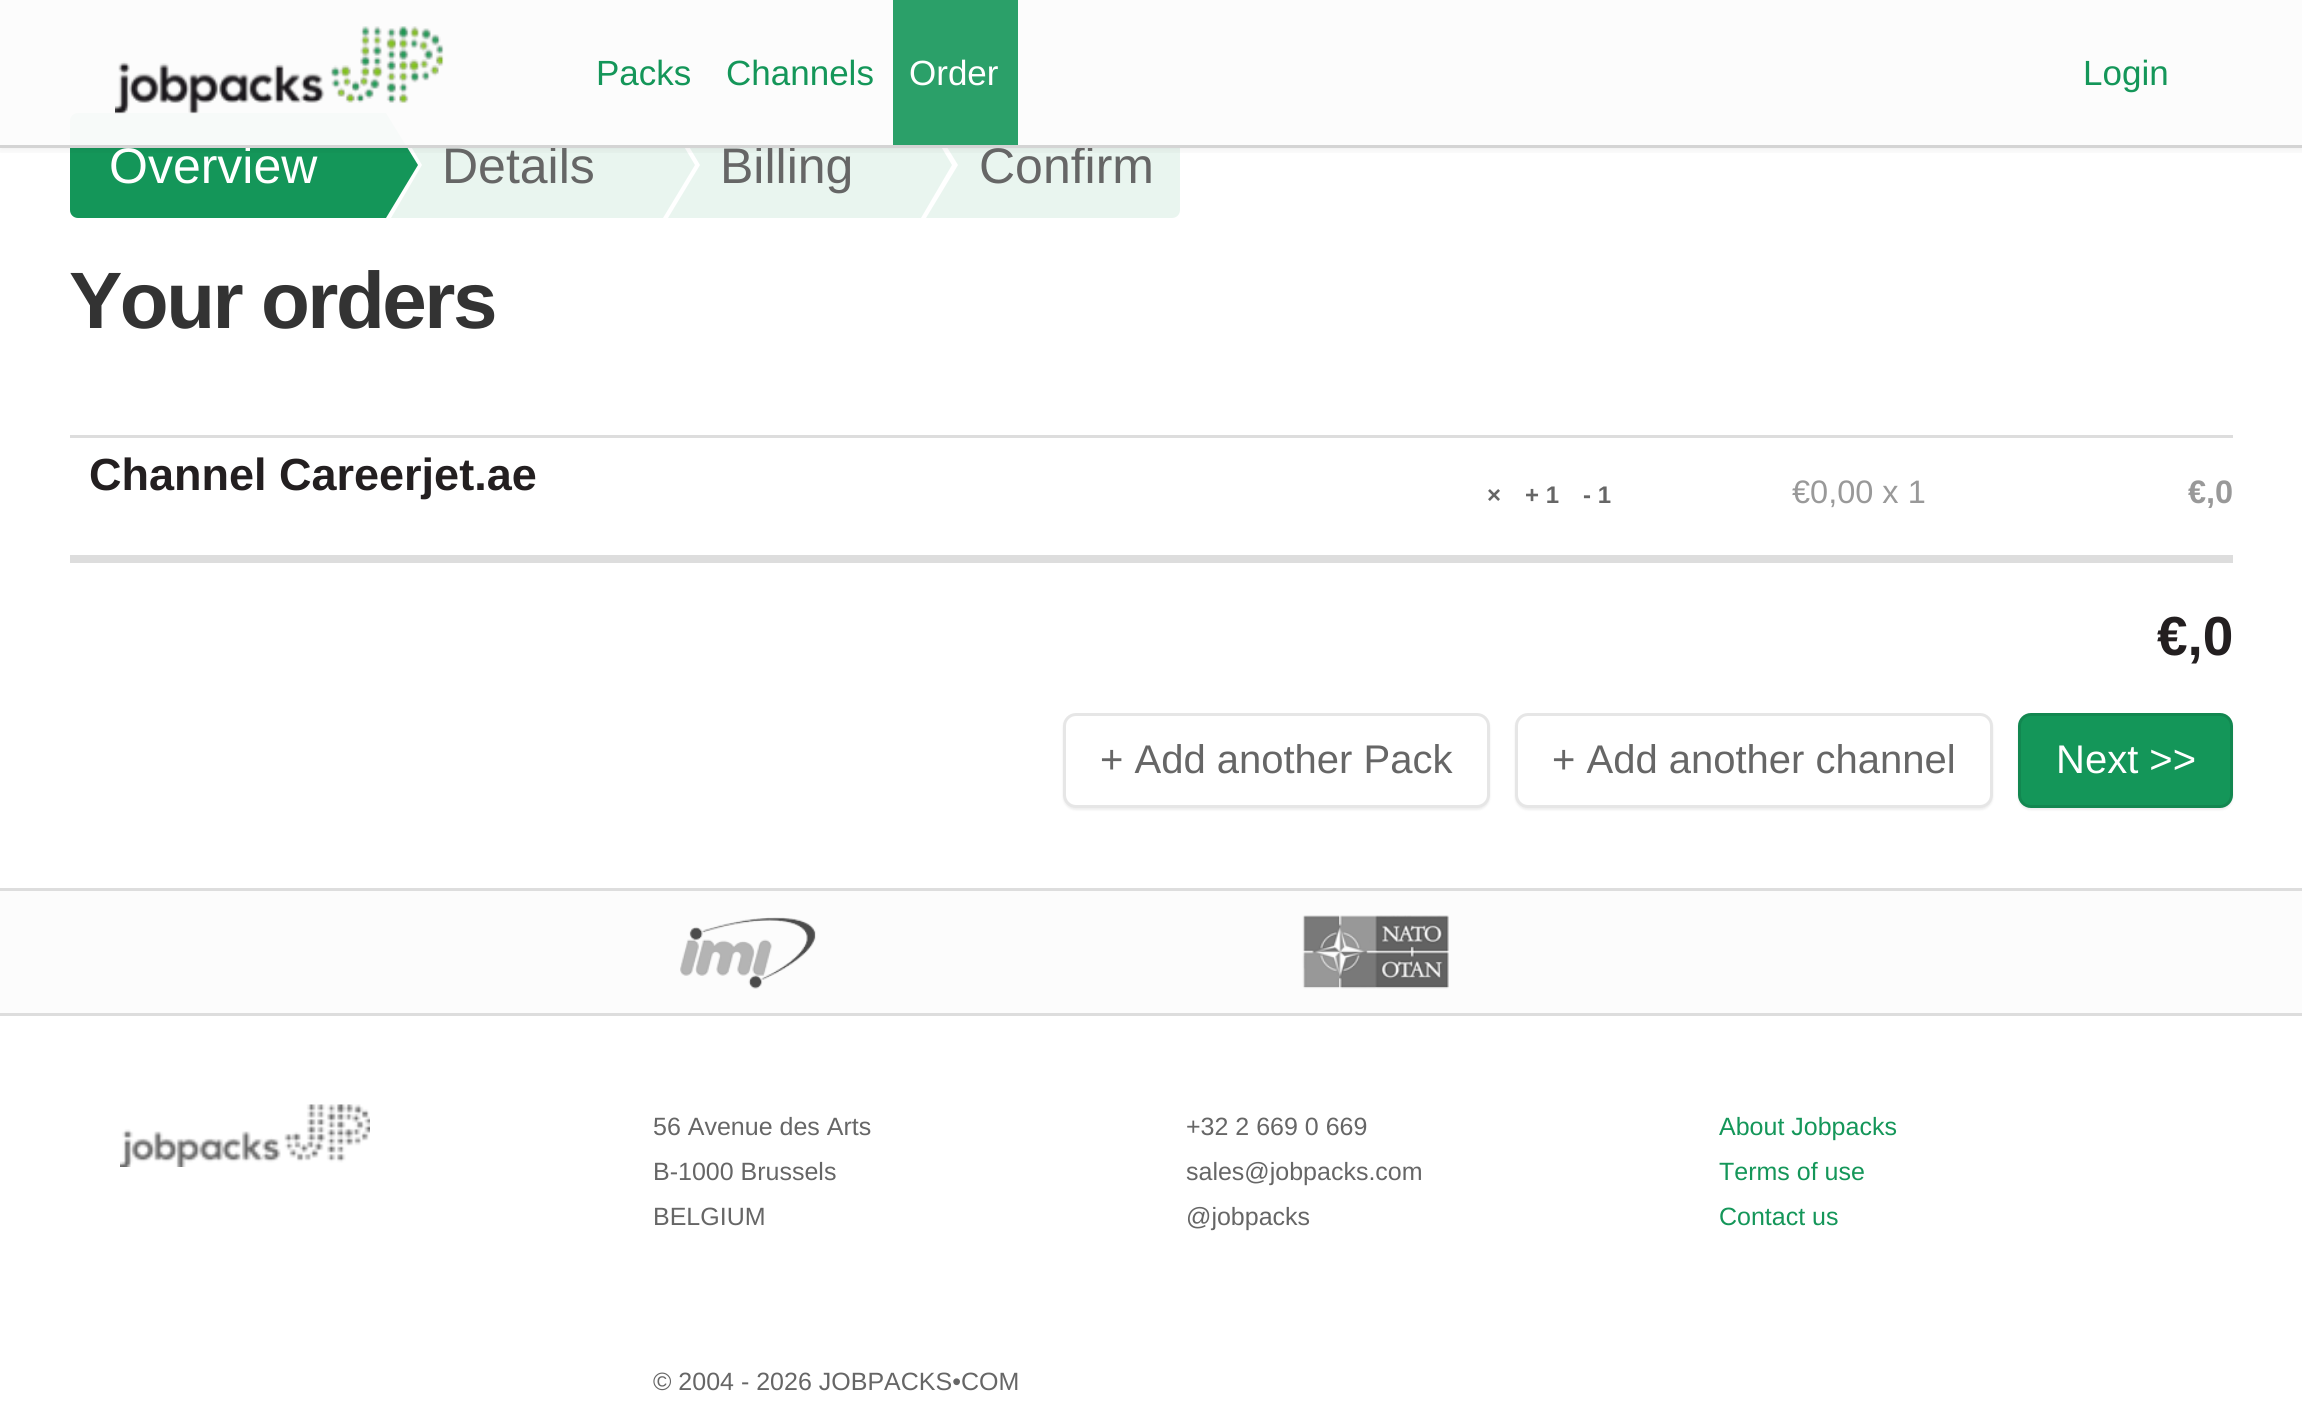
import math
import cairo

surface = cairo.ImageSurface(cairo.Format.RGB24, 2302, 1408)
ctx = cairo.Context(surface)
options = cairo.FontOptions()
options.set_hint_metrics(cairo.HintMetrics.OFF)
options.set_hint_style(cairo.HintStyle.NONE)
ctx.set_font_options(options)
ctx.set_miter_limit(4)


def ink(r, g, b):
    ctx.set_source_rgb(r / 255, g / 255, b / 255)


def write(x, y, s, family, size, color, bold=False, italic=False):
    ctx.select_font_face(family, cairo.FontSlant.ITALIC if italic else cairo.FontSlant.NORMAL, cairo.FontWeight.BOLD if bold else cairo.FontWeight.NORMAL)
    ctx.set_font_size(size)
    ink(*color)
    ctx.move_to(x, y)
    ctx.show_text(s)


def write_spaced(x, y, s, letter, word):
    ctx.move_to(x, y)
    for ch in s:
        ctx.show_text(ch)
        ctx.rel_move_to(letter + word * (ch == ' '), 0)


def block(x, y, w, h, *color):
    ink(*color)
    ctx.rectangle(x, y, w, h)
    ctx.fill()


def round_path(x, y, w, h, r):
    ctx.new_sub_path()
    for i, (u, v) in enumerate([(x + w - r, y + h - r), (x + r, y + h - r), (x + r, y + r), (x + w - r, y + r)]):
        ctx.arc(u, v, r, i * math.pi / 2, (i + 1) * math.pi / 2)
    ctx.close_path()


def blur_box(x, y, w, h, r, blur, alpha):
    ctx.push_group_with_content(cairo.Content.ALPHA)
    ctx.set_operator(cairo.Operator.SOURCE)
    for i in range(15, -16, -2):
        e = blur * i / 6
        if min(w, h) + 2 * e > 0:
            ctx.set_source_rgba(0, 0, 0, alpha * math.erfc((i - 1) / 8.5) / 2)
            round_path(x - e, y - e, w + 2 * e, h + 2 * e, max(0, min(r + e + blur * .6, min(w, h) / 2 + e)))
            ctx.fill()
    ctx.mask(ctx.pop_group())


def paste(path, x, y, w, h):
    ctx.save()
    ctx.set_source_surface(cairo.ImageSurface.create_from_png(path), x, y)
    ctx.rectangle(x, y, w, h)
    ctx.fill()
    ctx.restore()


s1 = dict(family="Liberation Sans", size=50, color=(255, 255, 255))
s2 = dict(family="Liberation Sans", size=50, color=(102, 102, 102))
s3 = dict(family="Liberation Sans", size=35, color=(20, 150, 89))
s4 = dict(family="Liberation Sans", size=35, color=(255, 255, 255))
s5 = dict(family="Liberation Sans", size=45, color=(35, 31, 32), bold=True)
s6 = dict(family="Liberation Sans", size=24, color=(102, 102, 102), bold=True)
s7 = dict(family="Liberation Sans", size=32.5, color=(153, 153, 153))
s8 = dict(family="Liberation Sans", size=32.5, color=(153, 153, 153), bold=True)
s9 = dict(family="Liberation Sans", size=55, color=(35, 31, 32), bold=True)
s10 = dict(family="Liberation Sans", size=40, color=(102, 102, 102))
s11 = dict(family="Liberation Sans", size=40, color=(255, 255, 255))
s12 = dict(family="Liberation Sans", size=25, color=(102, 102, 102))
s13 = dict(family="Liberation Sans", size=25, color=(20, 150, 89))

ink(255, 255, 255)
ctx.paint()
ink(20, 150, 89)
ctx.new_path()
ctx.move_to(78, 113)
ctx.line_to(343, 113)
ctx.line_to(343, 218)
ctx.line_to(78, 218)
ctx.curve_to(73.5, 218, 70, 214.5, 70, 210)
ctx.line_to(70, 121)
ctx.curve_to(70, 116.5, 73.5, 113, 78, 113)
ctx.close_path()
ctx.fill()
block(391, 113, 229, 105, 233, 245, 239)
ink(255, 255, 255)
ctx.new_path()
ctx.move_to(391, 113)
ctx.line_to(422, 165)
ctx.line_to(391, 218)
ctx.line_to(348, 218)
ctx.line_to(348, 113)
ctx.close_path()
ctx.fill()
ink(20, 150, 89)
ctx.new_path()
ctx.move_to(386, 113)
ctx.line_to(418, 165)
ctx.line_to(386, 218)
ctx.line_to(342, 218)
ctx.line_to(342, 113)
ctx.close_path()
ctx.fill()
block(668, 113, 210, 105, 233, 245, 239)
ink(255, 255, 255)
ctx.new_path()
ctx.move_to(669, 113)
ctx.line_to(700, 165)
ctx.line_to(668, 218)
ctx.line_to(625, 218)
ctx.line_to(625, 113)
ctx.close_path()
ctx.fill()
ink(233, 245, 239)
ctx.new_path()
ctx.move_to(664, 113)
ctx.line_to(695, 165)
ctx.line_to(663, 218)
ctx.line_to(620, 218)
ctx.line_to(620, 113)
ctx.close_path()
ctx.fill()
ctx.new_path()
ctx.move_to(878, 113)
ctx.line_to(1172, 113)
ctx.curve_to(1176.5, 113, 1180, 116.5, 1180, 121)
ctx.line_to(1180, 210)
ctx.curve_to(1180, 214.5, 1176.5, 218, 1172, 218)
ctx.line_to(878, 218)
ctx.close_path()
ctx.fill()
ink(255, 255, 255)
ctx.new_path()
ctx.move_to(926, 113)
ctx.line_to(958, 165)
ctx.line_to(926, 218)
ctx.line_to(882, 218)
ctx.line_to(882, 113)
ctx.close_path()
ctx.fill()
ink(233, 245, 239)
ctx.new_path()
ctx.move_to(921, 113)
ctx.line_to(952, 165)
ctx.line_to(921, 218)
ctx.line_to(878, 218)
ctx.line_to(878, 113)
ctx.close_path()
ctx.fill()
ctx.save()
ctx.rectangle(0, 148, 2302, 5)
ctx.clip()
ink(0, 0, 0)
blur_box(0, 3, 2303, 147, 0, 5, 0.07)
ctx.restore()
ctx.set_source_rgba(0.988, 0.988, 0.988, 0.98)
ctx.rectangle(0, 0, 2302, 145)
ctx.fill()
write(109, 183, "Overview", **s1)
write(442, 183, "Details", **s2)
write(720, 183, "Billing", **s2)
write(979, 183, "Confirm", **s2)
block(0, 145, 2302, 3, 212, 212, 212)
paste("pic1.png", 115, 26, 329, 88)
write(596, 85, "Packs", **s3)
write(726, 85, "Channels", **s3)
block(893, 0, 125, 145, 43, 160, 105)
write(909, 85, "Order", **s4)
write(2083, 85, "Login", **s3)
ctx.select_font_face("Liberation Sans", cairo.FontSlant.NORMAL, cairo.FontWeight.BOLD)
ctx.set_font_size(80)
ink(51, 51, 51)
write_spaced(69, 328, "Your orders", -2.5, 0)
block(70, 435, 2163, 3, 221, 221, 221)
write(89, 490, "Channel Careerjet.ae", **s5)
write(1487, 503, "×", **s6)
write(1525, 503, "+ 1", **s6)
write(1583, 503, "- 1", **s6)
write(1792, 503, "€0,00 x 1", **s7)
write(2188, 503, "€,0", **s8)
block(70, 555, 2163, 8, 221, 221, 221)
write(2157, 655, "€,0", **s9)
ink(238, 238, 238)
blur_box(1063, 715, 427, 95, 13, 1, 1)
ink(255, 255, 255)
round_path(1063, 713, 427, 95, 13)
ctx.fill()
round_path(1064.5, 714.5, 424, 92, 11.5)
ctx.set_source_rgba(0, 0, 0, 0.1)
ctx.set_line_width(3)
ctx.stroke()
write(1100, 773, "+ Add another Pack", **s10)
ink(238, 238, 238)
blur_box(1515, 715, 478, 95, 13, 1, 1)
ink(255, 255, 255)
round_path(1515, 713, 478, 95, 13)
ctx.fill()
round_path(1516.5, 714.5, 475, 92, 11.5)
ctx.set_source_rgba(0, 0, 0, 0.1)
ctx.stroke()
write(1552, 773, "+ Add another channel", **s10)
ink(238, 238, 238)
blur_box(2018, 715, 215, 95, 13, 1, 1)
ink(20, 150, 89)
round_path(2018, 713, 215, 95, 13)
ctx.fill()
round_path(2019.5, 714.5, 212, 92, 11.5)
ctx.set_source_rgba(0, 0, 0, 0.1)
ctx.stroke()
write(2056, 773, "Next >>", **s11)
block(0, 891, 2302, 122, 252, 252, 252)
block(0, 888, 2302, 3, 221, 221, 221)
paste("pic2.png", 680, 917, 136, 72)
paste("pic3.png", 1302, 915, 147, 74)
block(0, 1013, 2302, 3, 221, 221, 221)
paste("pic4.png", 120, 1104, 250, 63)
write(653, 1135, "56 Avenue des Arts", **s12)
write(653, 1180, "B-1000 Brussels", **s12)
write(653, 1225, "BELGIUM", **s12)
write(1186, 1135, "+32 2 669 0 669", **s12)
write(1186, 1180, "sales@jobpacks.com", **s12)
write(1186, 1225, "@jobpacks", **s12)
write(1719, 1135, "About Jobpacks", **s13)
write(1719, 1180, "Terms of use", **s13)
write(1719, 1225, "Contact us", **s13)
write(653, 1390, "© 2004 - 2026 JOBPACKS•COM", **s12)
surface.write_to_png("screenshot.png")
